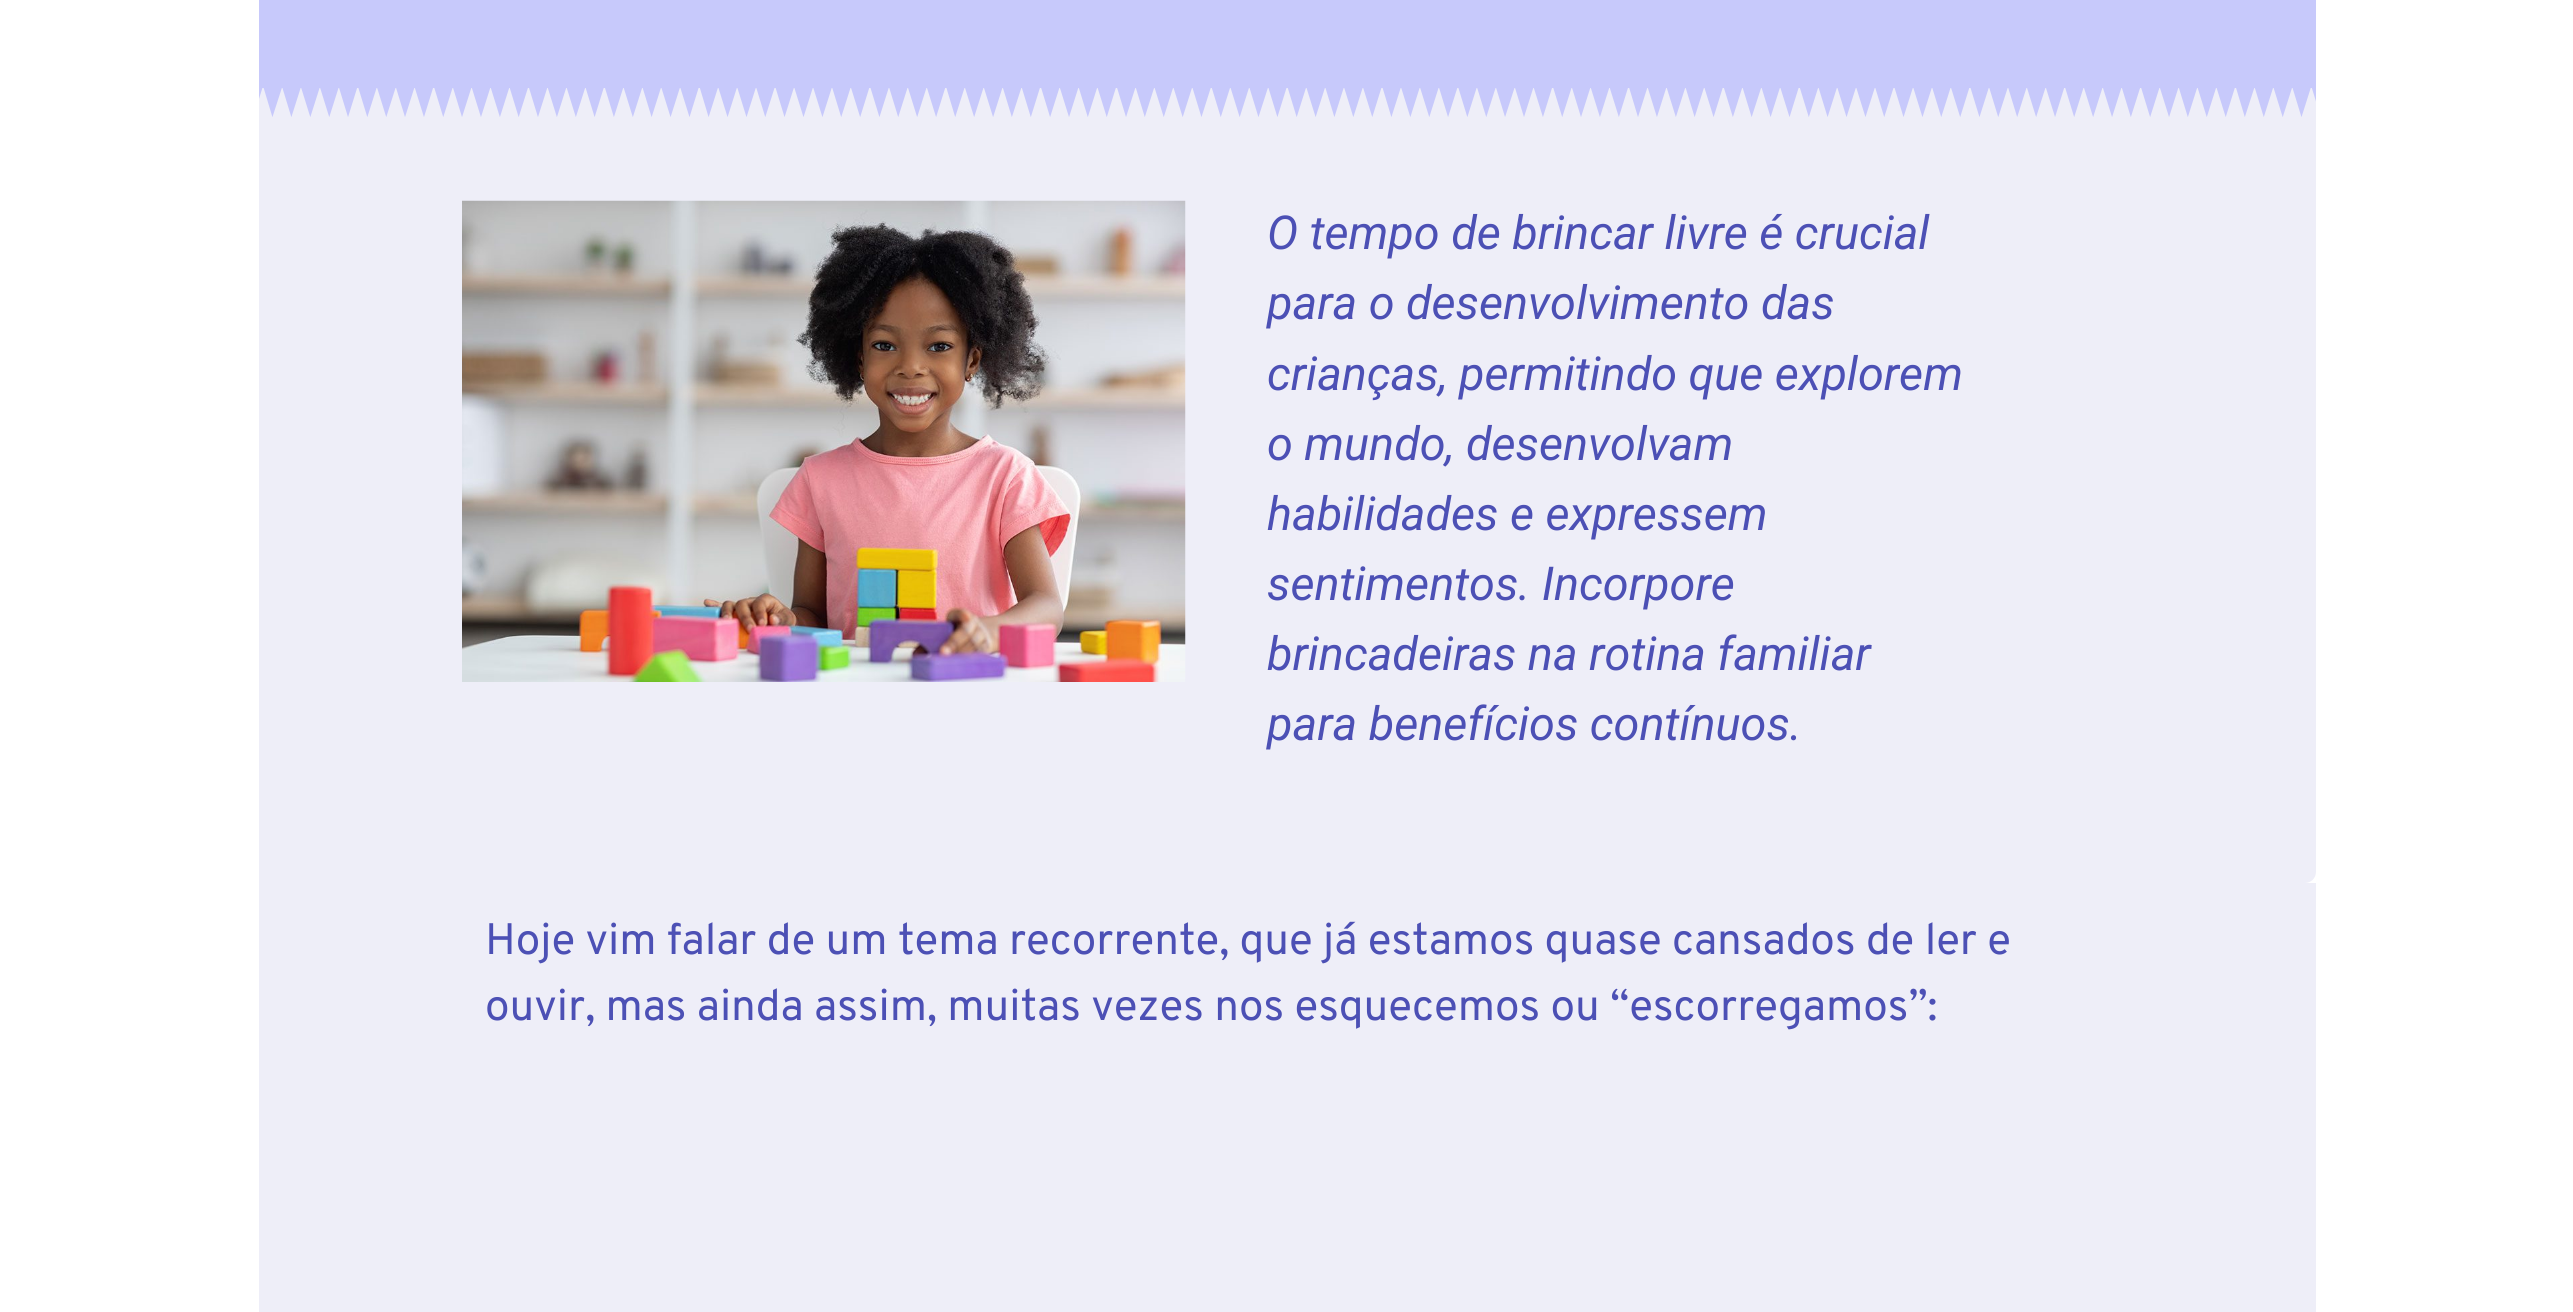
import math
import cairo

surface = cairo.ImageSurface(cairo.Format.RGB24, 2573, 1312)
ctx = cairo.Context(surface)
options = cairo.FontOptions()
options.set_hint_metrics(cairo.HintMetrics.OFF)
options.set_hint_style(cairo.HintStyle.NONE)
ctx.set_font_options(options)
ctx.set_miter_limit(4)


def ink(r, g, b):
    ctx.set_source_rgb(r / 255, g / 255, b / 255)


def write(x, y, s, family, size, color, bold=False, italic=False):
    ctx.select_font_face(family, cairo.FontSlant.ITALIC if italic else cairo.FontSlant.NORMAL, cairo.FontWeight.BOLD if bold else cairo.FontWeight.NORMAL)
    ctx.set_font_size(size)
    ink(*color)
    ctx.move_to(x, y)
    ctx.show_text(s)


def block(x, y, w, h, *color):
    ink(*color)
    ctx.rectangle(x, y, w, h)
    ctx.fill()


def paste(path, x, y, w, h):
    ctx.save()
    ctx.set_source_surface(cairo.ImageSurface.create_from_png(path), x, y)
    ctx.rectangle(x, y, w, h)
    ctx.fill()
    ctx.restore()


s1 = dict(family="Roboto", size=46.75, color=(76, 80, 181), italic=True)
s2 = dict(family="Overpass", size=44, color=(76, 80, 181))

ink(255, 255, 255)
ctx.paint()
block(259, 0, 2057, 118, 199, 201, 251)
paste("pic1.png", 259, 88, 2057, 30)
ink(238, 238, 248)
ctx.new_path()
ctx.move_to(259, 118)
ctx.line_to(2316, 118)
ctx.line_to(2316, 872)
ctx.curve_to(2316, 878, 2311, 883, 2305, 883)
ctx.line_to(259, 883)
ctx.close_path()
ctx.fill()
paste("pic2.png", 462, 200, 724, 482)
write(1267, 249, "O tempo de brincar livre é crucial", **s1)
write(1267, 319, "para o desenvolvimento das", **s1)
write(1267, 390, "crianças, permitindo que explorem", **s1)
write(1267, 460, "o mundo, desenvolvam", **s1)
write(1267, 530, "habilidades e expressem", **s1)
write(1267, 600, "sentimentos. Incorpore", **s1)
write(1267, 670, "brincadeiras na rotina familiar", **s1)
write(1267, 740, "para benefícios contínuos.", **s1)
block(259, 883, 2057, 429, 238, 238, 248)
write(485, 954, "Hoje vim falar de um tema recorrente, que já estamos quase cansados de ler e", **s2)
write(485, 1020, "ouvir, mas ainda assim, muitas vezes nos esquecemos ou “escorregamos”:", **s2)
surface.write_to_png("screenshot.png")
